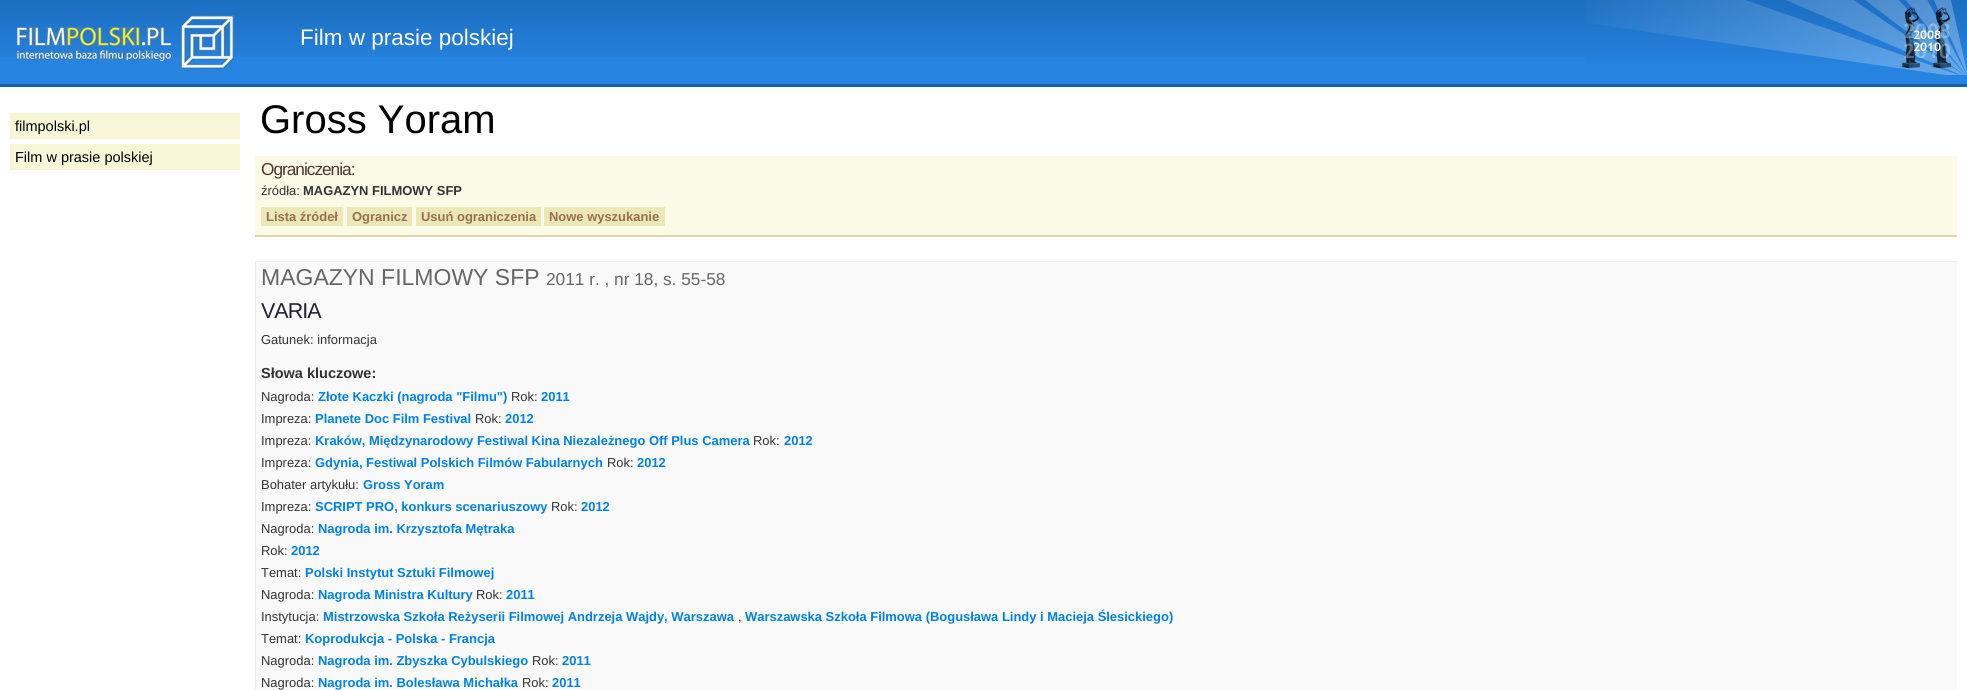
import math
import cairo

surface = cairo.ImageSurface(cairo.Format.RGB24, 1967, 690)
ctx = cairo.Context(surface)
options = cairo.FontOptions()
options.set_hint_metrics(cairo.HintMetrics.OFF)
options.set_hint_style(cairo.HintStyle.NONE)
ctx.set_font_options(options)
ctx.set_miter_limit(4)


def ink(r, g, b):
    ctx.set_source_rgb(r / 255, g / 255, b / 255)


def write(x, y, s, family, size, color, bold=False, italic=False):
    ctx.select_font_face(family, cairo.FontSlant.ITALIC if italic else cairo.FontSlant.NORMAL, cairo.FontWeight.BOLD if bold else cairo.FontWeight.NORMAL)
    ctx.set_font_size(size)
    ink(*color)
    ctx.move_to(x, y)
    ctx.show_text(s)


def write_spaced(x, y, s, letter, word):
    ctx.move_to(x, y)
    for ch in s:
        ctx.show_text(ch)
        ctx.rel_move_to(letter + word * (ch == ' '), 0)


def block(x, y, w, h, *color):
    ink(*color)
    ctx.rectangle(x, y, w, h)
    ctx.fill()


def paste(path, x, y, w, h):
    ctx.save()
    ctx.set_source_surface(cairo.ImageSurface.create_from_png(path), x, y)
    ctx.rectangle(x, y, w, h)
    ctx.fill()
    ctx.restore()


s1 = dict(family="Liberation Sans", size=22.5, color=(255, 255, 255))
s2 = dict(family="Liberation Sans", size=14.5, color=(0, 0, 0))
s3 = dict(family="Liberation Sans", size=40, color=(0, 0, 0))
s4 = dict(family="Liberation Sans", size=12.95, color=(51, 51, 51))
s5 = dict(family="Liberation Sans", size=12.95, color=(51, 51, 51), bold=True)
s6 = dict(family="Liberation Sans", size=12.95, color=(150, 113, 75), bold=True)
s7 = dict(family="Liberation Sans", size=23, color=(102, 102, 102))
s8 = dict(family="Liberation Sans", size=17.25, color=(102, 102, 102))
s9 = dict(family="Liberation Sans", size=14.5, color=(51, 51, 51), bold=True)
s10 = dict(family="Liberation Sans", size=12.95, color=(0, 129, 234), bold=True)

ink(255, 255, 255)
ctx.paint()
block(0, 57, 1967, 27, 38, 131, 223)
paste("pic1.png", 0, 0, 1586, 57)
paste("pic2.png", 1586, 0, 381, 75)
paste("pic3.png", 17, 15, 217, 54)
write(300, 45, "Film w prasie polskiej", **s1)
block(10, 113, 230, 26, 247, 247, 215)
write(15, 131, "filmpolski.pl", **s2)
block(10, 144, 230, 26, 247, 247, 215)
write(15, 162, "Film w prasie polskiej", **s2)
block(0, 84, 1967, 3, 24, 96, 167)
write(260, 133, "Gross Yoram", **s3)
block(255, 156, 1702, 79, 250, 250, 231)
block(255, 235, 1702, 2, 223, 214, 176)
ctx.set_font_size(17.25)
ink(85, 51, 46)
write_spaced(261, 175, "Ograniczenia:", -1, 0)
write(261, 195, "źródła:", **s4)
write(303, 195, "MAGAZYN FILMOWY SFP", **s5)
block(261, 207, 82, 19, 235, 231, 184)
write(266, 221, "Lista źródeł", **s6)
block(347, 207, 65, 19, 235, 231, 184)
write(352, 221, "Ogranicz", **s6)
block(416, 207, 125, 19, 235, 231, 184)
write(421, 221, "Usuń ograniczenia", **s6)
block(544, 207, 121, 19, 235, 231, 184)
write(549, 221, "Nowe wyszukanie", **s6)
block(256, 262, 1701, 428, 249, 249, 249)
block(255, 261, 1702, 1, 238, 238, 238)
block(255, 261, 1, 429, 238, 238, 238)
write(261, 285, "MAGAZYN FILMOWY SFP", **s7)
write(546, 285, "2011 r. , nr 18, s. 55-58", **s8)
ctx.set_font_size(21.5)
ink(34, 34, 51)
write_spaced(261, 318, "VARIA", -1, 0)
write(261, 344, "Gatunek: informacja", **s4)
write(261, 378, "Słowa kluczowe:", **s9)
write(261, 401, "Nagroda:", **s4)
write(318, 401, "Złote Kaczki (nagroda \"Filmu\")", **s10)
write(511, 401, "Rok:", **s4)
write(541, 401, "2011", **s10)
write(261, 423, "Impreza:", **s4)
write(315, 423, "Planete Doc Film Festival", **s10)
write(475, 423, "Rok:", **s4)
write(505, 423, "2012", **s10)
write(261, 445, "Impreza:", **s4)
write(315, 445, "Kraków, Międzynarodowy Festiwal Kina Niezależnego Off Plus Camera", **s10)
write(753, 445, "Rok:", **s4)
write(784, 445, "2012", **s10)
write(261, 467, "Impreza:", **s4)
write(315, 467, "Gdynia, Festiwal Polskich Filmów Fabularnych", **s10)
write(607, 467, "Rok:", **s4)
write(637, 467, "2012", **s10)
write(261, 489, "Bohater artykułu:", **s4)
write(363, 489, "Gross Yoram", **s10)
write(261, 511, "Impreza:", **s4)
write(315, 511, "SCRIPT PRO, konkurs scenariuszowy", **s10)
write(551, 511, "Rok:", **s4)
write(581, 511, "2012", **s10)
write(261, 533, "Nagroda:", **s4)
write(318, 533, "Nagroda im. Krzysztofa Mętraka", **s10)
write(261, 555, "Rok:", **s4)
write(291, 555, "2012", **s10)
write(261, 577, "Temat:", **s4)
write(305, 577, "Polski Instytut Sztuki Filmowej", **s10)
write(261, 599, "Nagroda:", **s4)
write(318, 599, "Nagroda Ministra Kultury", **s10)
write(476, 599, "Rok:", **s4)
write(506, 599, "2011", **s10)
write(261, 621, "Instytucja:", **s4)
write(323, 621, "Mistrzowska Szkoła Reżyserii Filmowej Andrzeja Wajdy, Warszawa", **s10)
write(738, 621, ",", **s4)
write(745, 621, "Warszawska Szkoła Filmowa (Bogusława Lindy i Macieja Ślesickiego)", **s10)
write(261, 643, "Temat:", **s4)
write(305, 643, "Koprodukcja - Polska - Francja", **s10)
write(261, 665, "Nagroda:", **s4)
write(318, 665, "Nagroda im. Zbyszka Cybulskiego", **s10)
write(532, 665, "Rok:", **s4)
write(562, 665, "2011", **s10)
write(261, 687, "Nagroda:", **s4)
write(318, 687, "Nagroda im. Bolesława Michałka", **s10)
write(522, 687, "Rok:", **s4)
write(552, 687, "2011", **s10)
surface.write_to_png("screenshot.png")
